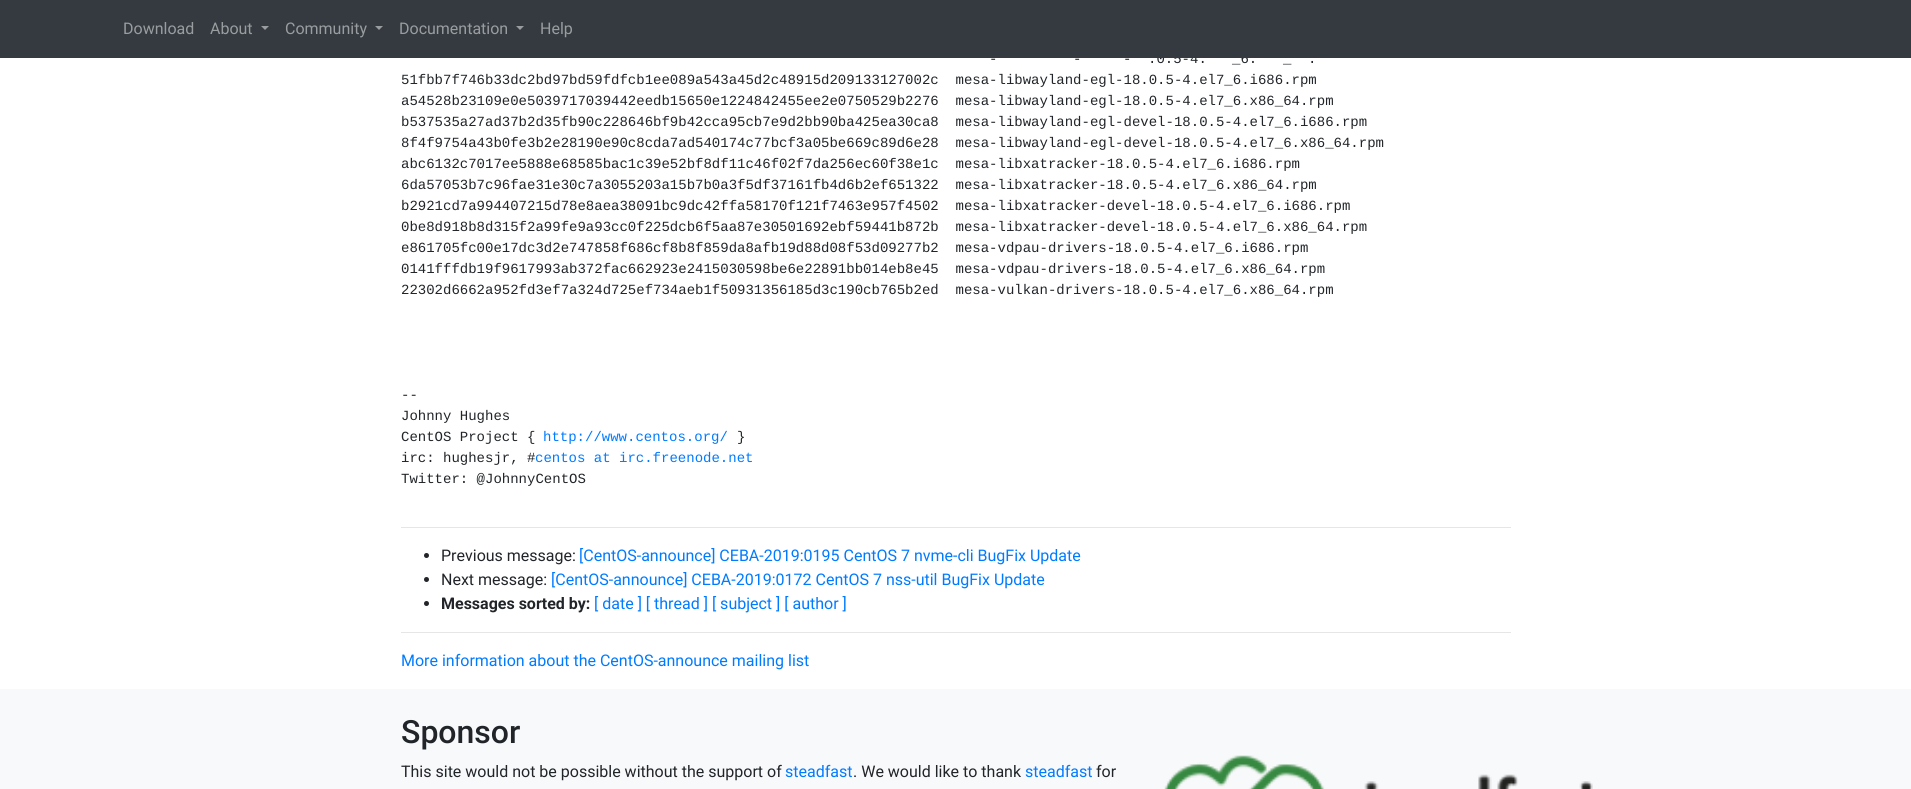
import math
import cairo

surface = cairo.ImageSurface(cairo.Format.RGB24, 1911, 789)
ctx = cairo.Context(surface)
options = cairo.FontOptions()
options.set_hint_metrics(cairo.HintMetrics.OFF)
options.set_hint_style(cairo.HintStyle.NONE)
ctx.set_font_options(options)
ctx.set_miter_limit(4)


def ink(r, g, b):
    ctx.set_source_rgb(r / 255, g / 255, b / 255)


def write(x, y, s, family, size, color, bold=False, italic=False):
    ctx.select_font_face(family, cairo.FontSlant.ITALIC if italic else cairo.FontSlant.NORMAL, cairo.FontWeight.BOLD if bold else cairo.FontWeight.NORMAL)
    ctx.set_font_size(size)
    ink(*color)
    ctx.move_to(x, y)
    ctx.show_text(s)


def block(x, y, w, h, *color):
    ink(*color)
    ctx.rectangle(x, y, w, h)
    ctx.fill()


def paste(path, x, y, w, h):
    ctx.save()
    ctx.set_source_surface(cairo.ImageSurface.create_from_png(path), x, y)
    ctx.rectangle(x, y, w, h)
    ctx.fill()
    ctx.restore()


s1 = dict(family="Liberation Mono", size=14, color=(33, 37, 41))
s2 = dict(family="Roboto", size=16, color=(154, 157, 160))
s3 = dict(family="Liberation Mono", size=14, color=(0, 123, 255))
s4 = dict(family="Roboto", size=16, color=(33, 37, 41))
s5 = dict(family="Roboto", size=16, color=(0, 123, 255))
s6 = dict(family="Roboto", size=16, color=(33, 37, 41), bold=True)
s7 = dict(family="Roboto Medium", size=32, color=(33, 37, 41))

ink(255, 255, 255)
ctx.paint()
write(1148, 63, ".0.5-4.", **s1)
write(1232, 63, "_6.", **s1)
block(0, 0, 1911, 58, 52, 58, 64)
write(123, 34, "Download", **s2)
write(210, 34, "About", **s2)
ctx.new_path()
ctx.move_to(261, 26)
ctx.line_to(269, 26)
ctx.line_to(265, 30)
ctx.close_path()
ctx.fill()
write(285, 34, "Community", **s2)
ctx.new_path()
ctx.move_to(375, 26)
ctx.line_to(383, 26)
ctx.line_to(379, 30)
ctx.close_path()
ctx.fill()
write(399, 34, "Documentation", **s2)
ctx.new_path()
ctx.move_to(516, 26)
ctx.line_to(524, 26)
ctx.line_to(520, 30)
ctx.close_path()
ctx.fill()
write(540, 34, "Help", **s2)
write(989, 63, "-", **s1)
write(1073, 63, "-", **s1)
write(1123, 63, "-", **s1)
write(1308, 63, ".", **s1)
write(1283, 63, "_", **s1)
write(401, 84, "51fbb7f746b33dc2bd97bd59fdfcb1ee089a543a45d2c48915d209133127002c  mesa-libwayland-egl-18.0.5-4.el7_6.i686.rpm", **s1)
write(401, 105, "a54528b23109e0e5039717039442eedb15650e1224842455ee2e0750529b2276  mesa-libwayland-egl-18.0.5-4.el7_6.x86_64.rpm", **s1)
write(401, 126, "b537535a27ad37b2d35fb90c228646bf9b42cca95cb7e9d2bb90ba425ea30ca8  mesa-libwayland-egl-devel-18.0.5-4.el7_6.i686.rpm", **s1)
write(401, 147, "8f4f9754a43b0fe3b2e28190e90c8cda7ad540174c77bcf3a05be669c89d6e28  mesa-libwayland-egl-devel-18.0.5-4.el7_6.x86_64.rpm", **s1)
write(401, 168, "abc6132c7017ee5888e68585bac1c39e52bf8df11c46f02f7da256ec60f38e1c  mesa-libxatracker-18.0.5-4.el7_6.i686.rpm", **s1)
write(401, 189, "6da57053b7c96fae31e30c7a3055203a15b7b0a3f5df37161fb4d6b2ef651322  mesa-libxatracker-18.0.5-4.el7_6.x86_64.rpm", **s1)
write(401, 210, "b2921cd7a994407215d78e8aea38091bc9dc42ffa58170f121f7463e957f4502  mesa-libxatracker-devel-18.0.5-4.el7_6.i686.rpm", **s1)
write(401, 231, "0be8d918b8d315f2a99fe9a93cc0f225dcb6f5aa87e30501692ebf59441b872b  mesa-libxatracker-devel-18.0.5-4.el7_6.x86_64.rpm", **s1)
write(401, 252, "e861705fc00e17dc3d2e747858f686cf8b8f859da8afb19d88d08f53d09277b2  mesa-vdpau-drivers-18.0.5-4.el7_6.i686.rpm", **s1)
write(401, 273, "0141fffdb19f9617993ab372fac662923e2415030598be6e22891bb014eb8e45  mesa-vdpau-drivers-18.0.5-4.el7_6.x86_64.rpm", **s1)
write(401, 294, "22302d6662a952fd3ef7a324d725ef734aeb1f50931356185d3c190cb765b2ed  mesa-vulkan-drivers-18.0.5-4.el7_6.x86_64.rpm", **s1)
write(401, 399, "--", **s1)
write(401, 420, "Johnny Hughes", **s1)
write(401, 441, "CentOS Project {", **s1)
write(543, 441, "http://www.centos.org/", **s3)
write(737, 441, "}", **s1)
write(401, 462, "irc: hughesjr, #", **s1)
write(535, 462, "centos at irc.freenode.net", **s3)
write(401, 483, "Twitter: @JohnnyCentOS", **s1)
block(401, 527, 1110, 1, 230, 230, 230)
ink(33, 37, 41)
ctx.new_path()
ctx.arc(426.5, 555.5, 2.5, 0, 2 * math.pi)
ctx.fill()
write(441, 561, "Previous message:", **s4)
write(579, 561, "[CentOS-announce] CEBA-2019:0195 CentOS 7 nvme-cli BugFix Update", **s5)
ink(33, 37, 41)
ctx.new_path()
ctx.arc(426.5, 579.5, 2.5, 0, 2 * math.pi)
ctx.fill()
write(441, 585, "Next message:", **s4)
write(551, 585, "[CentOS-announce] CEBA-2019:0172 CentOS 7 nss-util BugFix Update", **s5)
ink(33, 37, 41)
ctx.new_path()
ctx.arc(426.5, 603.5, 2.5, 0, 2 * math.pi)
ctx.fill()
write(441, 609, "Messages sorted by:", **s6)
write(594, 609, "[ date ] [ thread ] [ subject ] [ author ]", **s5)
block(401, 632, 1110, 1, 230, 230, 230)
write(401, 666, "More information about the CentOS-announce mailing list", **s5)
block(0, 689, 1911, 100, 248, 249, 250)
write(401, 743, "Sponsor", **s7)
write(401, 777, "This site would not be possible without the support of", **s4)
write(785, 777, "steadfast", **s5)
write(853, 777, ". We would like to thank", **s4)
write(1025, 777, "steadfast", **s5)
write(1096, 777, "for", **s4)
paste("pic1.png", 1164, 755, 429, 34)
surface.write_to_png("screenshot.png")
